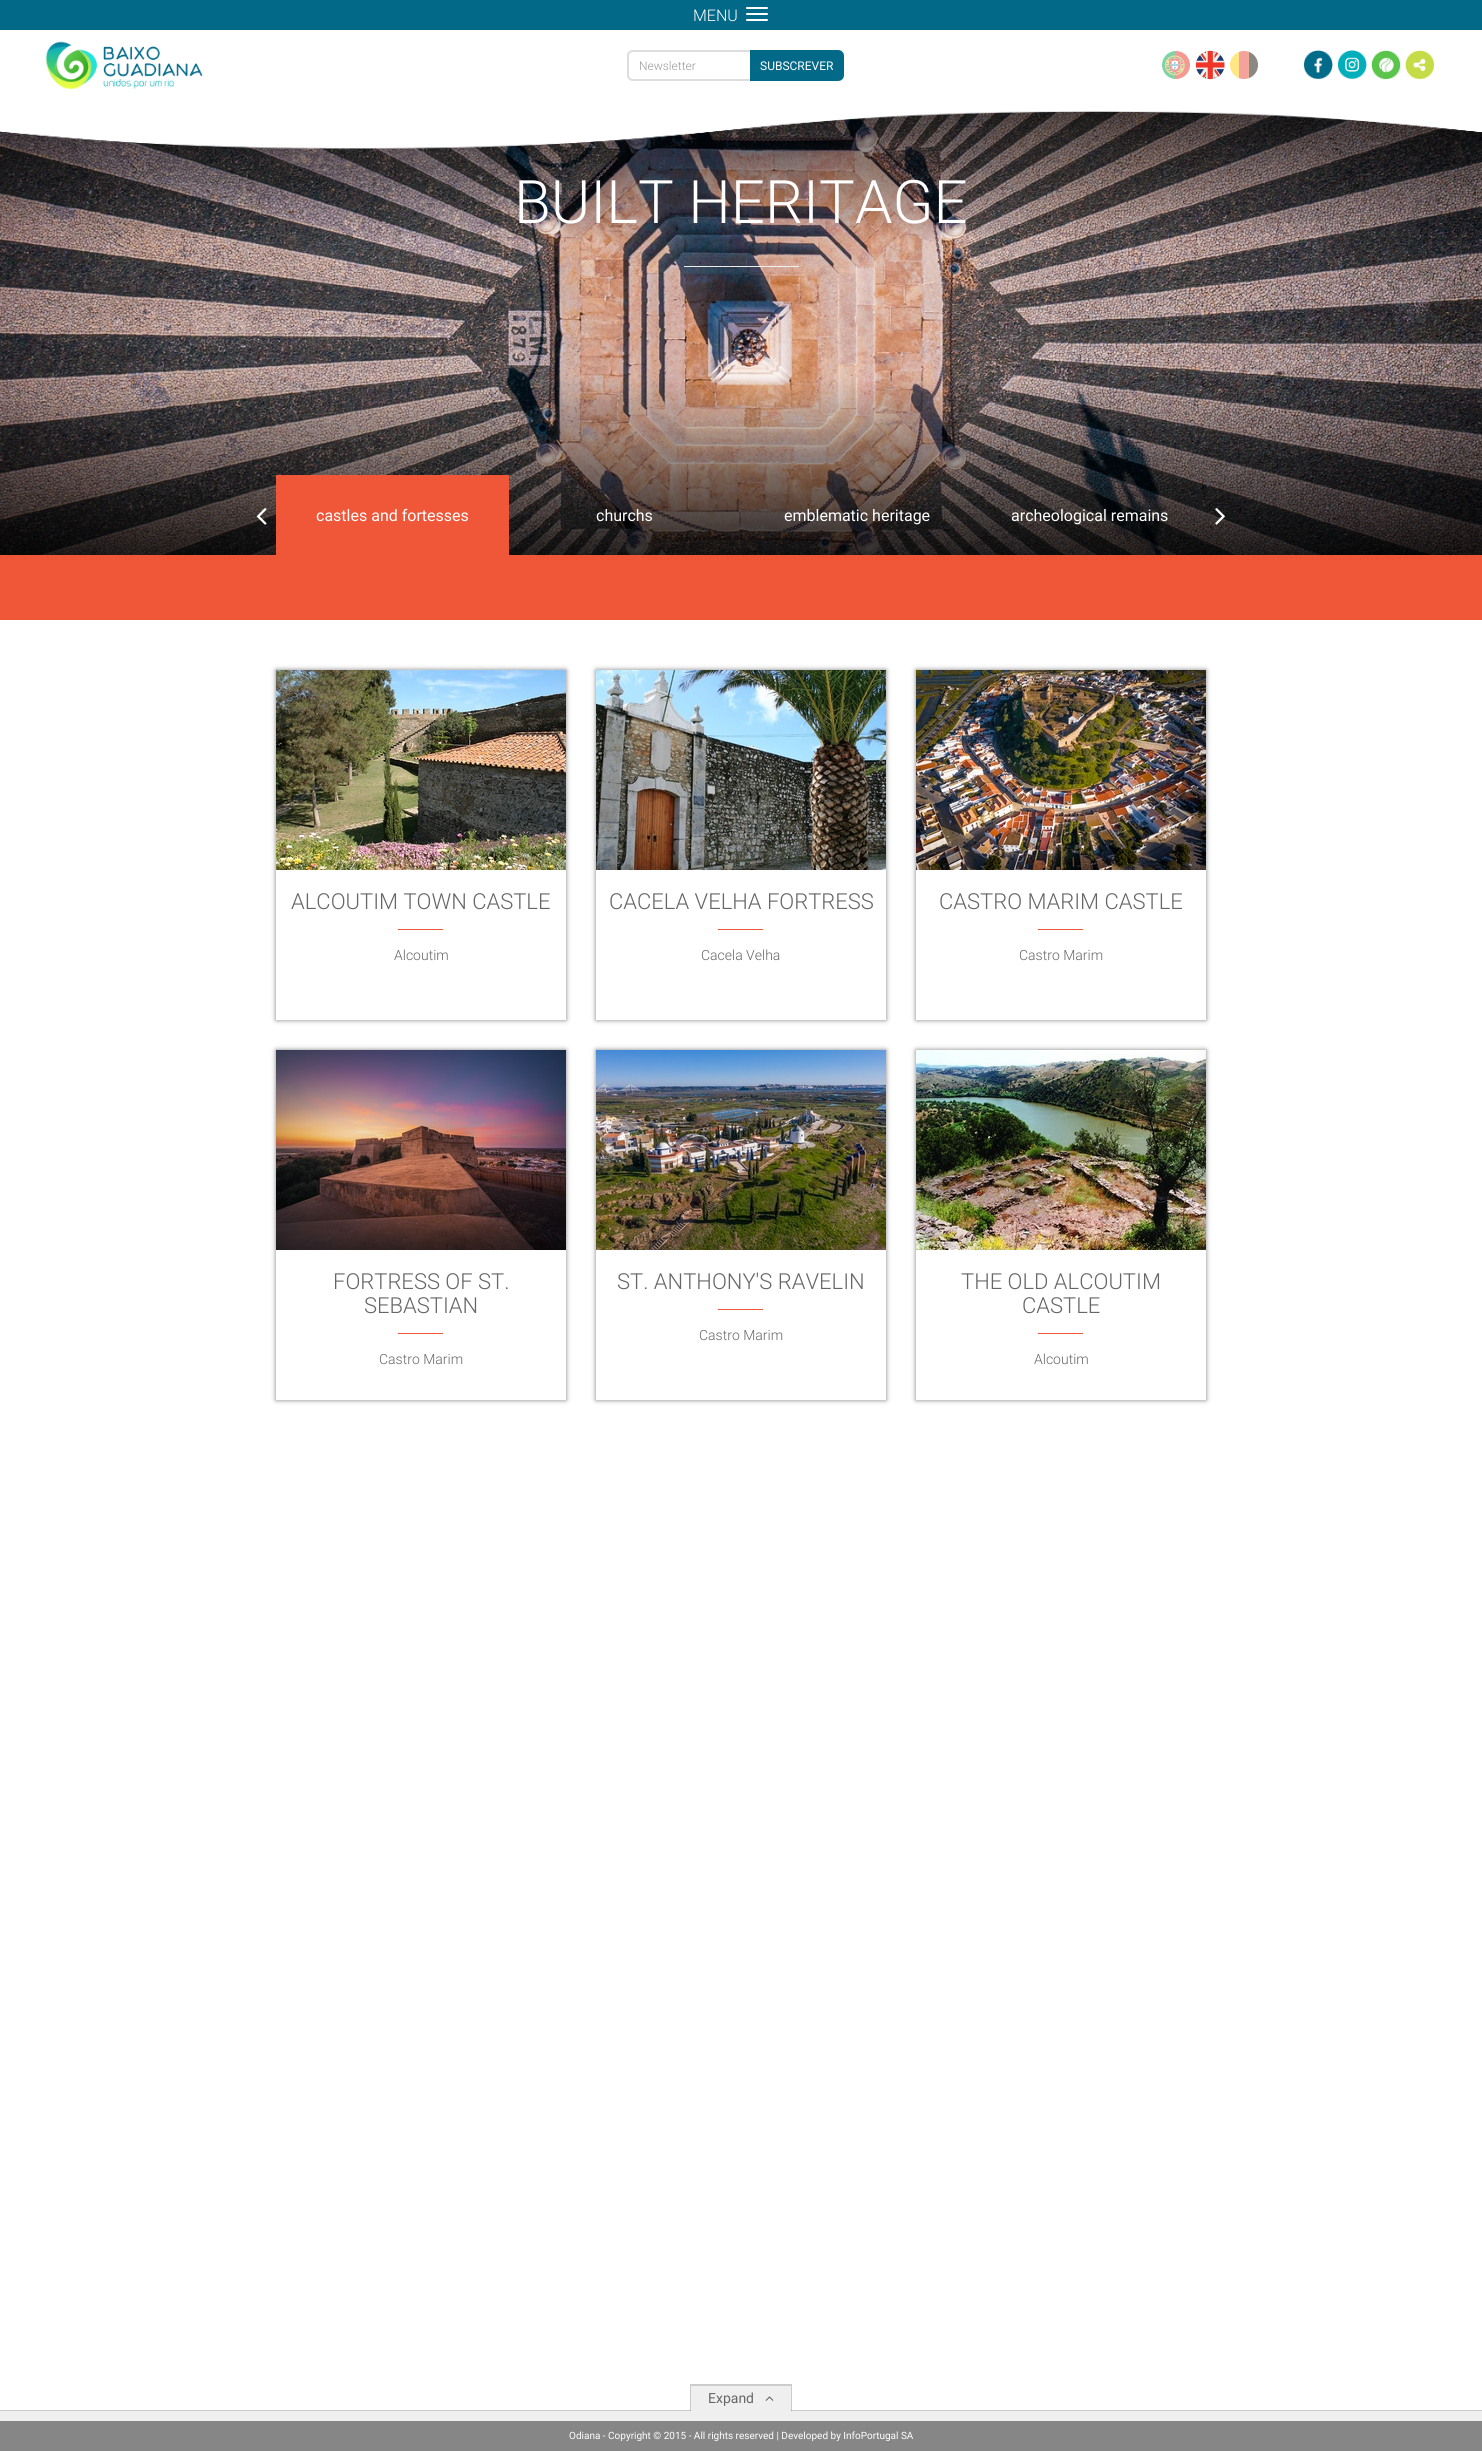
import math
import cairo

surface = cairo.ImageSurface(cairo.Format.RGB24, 1482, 2451)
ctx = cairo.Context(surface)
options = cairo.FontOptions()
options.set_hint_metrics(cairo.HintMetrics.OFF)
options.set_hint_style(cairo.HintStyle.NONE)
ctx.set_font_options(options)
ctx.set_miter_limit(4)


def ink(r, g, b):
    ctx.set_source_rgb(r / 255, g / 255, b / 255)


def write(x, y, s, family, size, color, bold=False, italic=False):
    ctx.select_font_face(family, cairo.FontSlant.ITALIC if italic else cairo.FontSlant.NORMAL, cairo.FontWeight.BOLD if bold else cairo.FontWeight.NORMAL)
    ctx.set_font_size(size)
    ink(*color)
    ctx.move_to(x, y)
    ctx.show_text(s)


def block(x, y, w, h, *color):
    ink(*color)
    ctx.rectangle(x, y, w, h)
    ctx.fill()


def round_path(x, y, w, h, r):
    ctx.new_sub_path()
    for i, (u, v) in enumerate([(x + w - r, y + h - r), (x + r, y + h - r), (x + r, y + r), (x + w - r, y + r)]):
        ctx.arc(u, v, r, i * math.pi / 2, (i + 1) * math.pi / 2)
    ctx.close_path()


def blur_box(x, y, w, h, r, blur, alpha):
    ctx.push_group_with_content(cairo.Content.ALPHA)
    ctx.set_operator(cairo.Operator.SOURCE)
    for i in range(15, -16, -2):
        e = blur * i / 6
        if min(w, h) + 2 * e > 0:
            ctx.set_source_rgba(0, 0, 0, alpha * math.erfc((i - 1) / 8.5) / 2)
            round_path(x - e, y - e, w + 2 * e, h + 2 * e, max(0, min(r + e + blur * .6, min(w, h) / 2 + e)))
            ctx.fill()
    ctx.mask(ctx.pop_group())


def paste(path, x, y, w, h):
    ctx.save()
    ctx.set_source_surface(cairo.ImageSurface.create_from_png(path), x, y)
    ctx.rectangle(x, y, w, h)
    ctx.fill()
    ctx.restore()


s1 = dict(family="Roboto Light", size=16, color=(255, 255, 255))
s2 = dict(family="Roboto Light", size=12, color=(153, 153, 153))
s3 = dict(family="Roboto", size=12, color=(255, 255, 255))
s4 = dict(family="Roboto Light", size=60, color=(255, 255, 255))
s5 = dict(family="Roboto", size=16, color=(255, 255, 255))
s6 = dict(family="Roboto Light", size=22, color=(102, 102, 102))
s7 = dict(family="Roboto Light", size=14, color=(102, 102, 102))
s8 = dict(family="Roboto", size=14, color=(102, 102, 102))
s9 = dict(family="Roboto", size=10, color=(255, 255, 255))

ink(255, 255, 255)
ctx.paint()
paste("pic1.png", 45, 41, 158, 49)
block(0, 0, 1482, 30, 3, 105, 137)
write(693, 21, "MENU", **s1)
round_path(746, 7, 22, 2, 1)
ctx.fill()
round_path(746, 13, 22, 2, 1)
ctx.fill()
round_path(746, 19, 22, 2, 1)
ctx.fill()
ctx.new_path()
ctx.move_to(633, 51)
ctx.line_to(749, 51)
ctx.curve_to(750.5, 51, 752, 52.5, 752, 54)
ctx.line_to(752, 77)
ctx.curve_to(752, 78.5, 750.5, 80, 749, 80)
ctx.line_to(633, 80)
ctx.curve_to(630, 80, 628, 78, 628, 75)
ctx.line_to(628, 56)
ctx.curve_to(628, 53, 630, 51, 633, 51)
ctx.close_path()
ink(221, 221, 221)
ctx.stroke()
write(639, 70, "Newsletter", **s2)
ink(3, 105, 137)
ctx.new_path()
ctx.move_to(750, 50)
ctx.line_to(838, 50)
ctx.curve_to(841.5, 50, 844, 52.5, 844, 56)
ctx.line_to(844, 75)
ctx.curve_to(844, 78.5, 841.5, 81, 838, 81)
ctx.line_to(750, 81)
ctx.close_path()
ctx.fill()
write(760, 70, "SUBSCREVER", **s3)
paste("pic2.png", 1162, 51, 28, 28)
paste("pic3.png", 1195, 50, 30, 30)
paste("pic4.png", 1230, 51, 28, 28)
paste("pic5.png", 1304, 50, 29, 30)
paste("pic6.png", 1338, 50, 29, 30)
paste("pic7.png", 1371, 50, 30, 30)
paste("pic8.png", 1405, 50, 30, 30)
paste("pic10.png", 0, 111, 1482, 444)
paste("pic9.png", 0, 110, 1482, 39)
write(514, 223, "BUILT HERITAGE", **s4)
block(684, 266, 115, 1, 238, 238, 238)
paste("pic11.png", 256, 508, 11, 17)
paste("pic12.png", 1215, 508, 10, 17)
block(276, 475, 233, 80, 240, 86, 56)
write(316, 521, "castles and fortesses", **s5)
write(596, 521, "churchs", **s5)
write(784, 521, "emblematic heritage", **s5)
write(1011, 521, "archeological remains", **s5)
block(0, 555, 1482, 65, 240, 86, 56)
ctx.save()
ctx.set_fill_rule(cairo.FillRule.EVEN_ODD)
ctx.new_path()
ctx.move_to(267, 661)
ctx.line_to(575, 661)
ctx.line_to(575, 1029)
ctx.line_to(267, 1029)
ctx.close_path()
ctx.move_to(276, 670)
ctx.line_to(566, 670)
ctx.line_to(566, 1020)
ctx.line_to(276, 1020)
ctx.close_path()
ctx.clip()
ink(0, 0, 0)
blur_box(276, 670, 290, 350, 0, 2.5, 0.5)
ctx.restore()
paste("pic13.png", 276, 670, 290, 200)
write(291, 909, "ALCOUTIM TOWN CASTLE", **s6)
block(398, 929, 45, 1, 240, 86, 56)
write(394, 960, "Alcoutim", **s7)
ctx.save()
ctx.set_fill_rule(cairo.FillRule.EVEN_ODD)
ctx.new_path()
ctx.move_to(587, 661)
ctx.line_to(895, 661)
ctx.line_to(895, 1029)
ctx.line_to(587, 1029)
ctx.close_path()
ctx.move_to(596, 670)
ctx.line_to(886, 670)
ctx.line_to(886, 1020)
ctx.line_to(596, 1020)
ctx.close_path()
ctx.clip()
ink(0, 0, 0)
blur_box(596, 670, 290, 350, 0, 2.5, 0.5)
ctx.restore()
paste("pic14.png", 596, 670, 290, 200)
write(609, 909, "CACELA VELHA FORTRESS", **s6)
block(718, 929, 45, 1, 240, 86, 56)
write(701, 960, "Cacela Velha", **s7)
ctx.save()
ctx.set_fill_rule(cairo.FillRule.EVEN_ODD)
ctx.new_path()
ctx.move_to(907, 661)
ctx.line_to(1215, 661)
ctx.line_to(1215, 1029)
ctx.line_to(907, 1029)
ctx.close_path()
ctx.move_to(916, 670)
ctx.line_to(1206, 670)
ctx.line_to(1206, 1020)
ctx.line_to(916, 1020)
ctx.close_path()
ctx.clip()
ink(0, 0, 0)
blur_box(916, 670, 290, 350, 0, 2.5, 0.5)
ctx.restore()
paste("pic15.png", 916, 670, 290, 200)
write(939, 909, "CASTRO MARIM CASTLE", **s6)
block(1038, 929, 45, 1, 240, 86, 56)
write(1019, 960, "Castro Marim", **s7)
ctx.save()
ctx.set_fill_rule(cairo.FillRule.EVEN_ODD)
ctx.new_path()
ctx.move_to(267, 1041)
ctx.line_to(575, 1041)
ctx.line_to(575, 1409)
ctx.line_to(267, 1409)
ctx.close_path()
ctx.move_to(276, 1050)
ctx.line_to(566, 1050)
ctx.line_to(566, 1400)
ctx.line_to(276, 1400)
ctx.close_path()
ctx.clip()
ink(0, 0, 0)
blur_box(276, 1050, 290, 350, 0, 2.5, 0.5)
ctx.restore()
paste("pic16.png", 276, 1050, 290, 200)
write(333, 1289, "FORTRESS OF ST.", **s6)
write(364, 1313, "SEBASTIAN", **s6)
block(398, 1333, 45, 1, 240, 86, 56)
write(379, 1364, "Castro Marim", **s7)
ctx.save()
ctx.set_fill_rule(cairo.FillRule.EVEN_ODD)
ctx.new_path()
ctx.move_to(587, 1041)
ctx.line_to(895, 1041)
ctx.line_to(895, 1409)
ctx.line_to(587, 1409)
ctx.close_path()
ctx.move_to(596, 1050)
ctx.line_to(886, 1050)
ctx.line_to(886, 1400)
ctx.line_to(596, 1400)
ctx.close_path()
ctx.clip()
ink(0, 0, 0)
blur_box(596, 1050, 290, 350, 0, 2.5, 0.5)
ctx.restore()
paste("pic17.png", 596, 1050, 290, 200)
write(617, 1289, "ST. ANTHONY'S RAVELIN", **s6)
block(718, 1309, 45, 1, 240, 86, 56)
write(699, 1340, "Castro Marim", **s7)
ctx.save()
ctx.set_fill_rule(cairo.FillRule.EVEN_ODD)
ctx.new_path()
ctx.move_to(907, 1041)
ctx.line_to(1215, 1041)
ctx.line_to(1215, 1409)
ctx.line_to(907, 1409)
ctx.close_path()
ctx.move_to(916, 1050)
ctx.line_to(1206, 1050)
ctx.line_to(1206, 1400)
ctx.line_to(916, 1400)
ctx.close_path()
ctx.clip()
ink(0, 0, 0)
blur_box(916, 1050, 290, 350, 0, 2.5, 0.5)
ctx.restore()
paste("pic18.png", 916, 1050, 290, 200)
write(961, 1289, "THE OLD ALCOUTIM", **s6)
write(1022, 1313, "CASTLE", **s6)
block(1038, 1333, 45, 1, 240, 86, 56)
write(1034, 1364, "Alcoutim", **s7)
ctx.rectangle(-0.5, 2410.5, 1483, 11)
ink(204, 204, 204)
ctx.set_line_width(1)
ctx.stroke()
block(0, 2411, 1482, 10, 240, 239, 239)
ctx.set_source_rgba(0, 0, 0, 0.2)
ctx.new_path()
ctx.move_to(690, 2384)
ctx.line_to(690, 2411)
ctx.line_to(691, 2411)
ctx.line_to(691, 2386)
ctx.line_to(791, 2386)
ctx.line_to(791, 2411)
ctx.line_to(792, 2411)
ctx.line_to(792, 2384)
ctx.close_path()
ctx.fill()
block(691, 2386, 100, 25, 240, 239, 239)
write(708, 2403, "Expand", **s8)
paste("pic19.png", 765, 2396, 9, 5)
block(0, 2421, 1482, 30, 134, 134, 134)
write(569, 2439, "Odiana - Copyright © 2015 - All rights reserved | Developed by InfoPortugal SA", **s9)
surface.write_to_png("screenshot.png")
